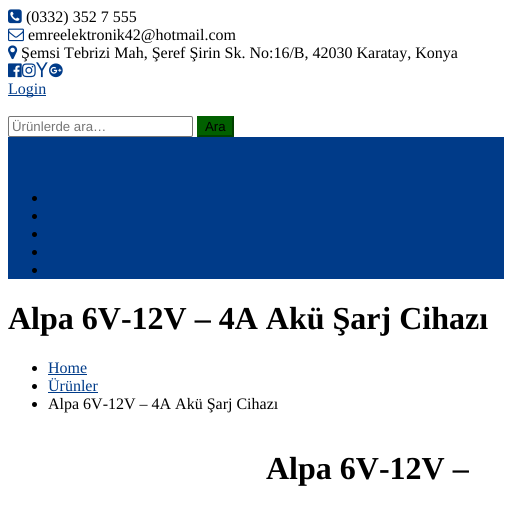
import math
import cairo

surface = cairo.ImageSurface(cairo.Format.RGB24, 512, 510)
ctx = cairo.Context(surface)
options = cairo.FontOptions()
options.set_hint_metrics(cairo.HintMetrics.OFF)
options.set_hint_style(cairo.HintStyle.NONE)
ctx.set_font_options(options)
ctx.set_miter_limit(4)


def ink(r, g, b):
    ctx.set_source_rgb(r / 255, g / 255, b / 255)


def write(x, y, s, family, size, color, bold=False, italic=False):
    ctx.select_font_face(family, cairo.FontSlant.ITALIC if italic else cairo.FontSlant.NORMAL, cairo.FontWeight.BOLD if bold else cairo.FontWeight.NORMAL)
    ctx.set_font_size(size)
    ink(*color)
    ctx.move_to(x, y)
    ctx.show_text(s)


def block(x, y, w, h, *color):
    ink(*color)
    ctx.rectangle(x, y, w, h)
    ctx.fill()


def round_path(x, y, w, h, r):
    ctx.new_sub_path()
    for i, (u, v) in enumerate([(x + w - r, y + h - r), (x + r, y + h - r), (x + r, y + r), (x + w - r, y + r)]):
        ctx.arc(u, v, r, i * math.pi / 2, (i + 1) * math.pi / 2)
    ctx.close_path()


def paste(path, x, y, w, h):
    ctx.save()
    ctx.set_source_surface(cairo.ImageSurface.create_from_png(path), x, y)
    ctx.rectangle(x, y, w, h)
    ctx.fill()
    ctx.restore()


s1 = dict(family="Liberation Serif", size=16, color=(0, 0, 0))
s2 = dict(family="Liberation Serif", size=16, color=(0, 59, 137))
s3 = dict(family="Liberation Sans", size=13.25, color=(117, 117, 117))
s4 = dict(family="Liberation Sans", size=13.25, color=(0, 0, 0))
s5 = dict(family="Liberation Serif", size=32, color=(0, 0, 0), bold=True)

ink(255, 255, 255)
ctx.paint()
paste("pic1.png", 8, 9, 14, 15)
write(26, 22, "(0332) 352 7 555", **s1)
paste("pic2.png", 8, 28, 16, 14)
write(28, 40, "emreelektronik42@hotmail.com", **s1)
paste("pic3.png", 8, 45, 10, 15)
write(21, 58, "Şemsi Tebrizi Mah, Şeref Şirin Sk. No:16/B, 42030 Karatay, Konya", **s1)
paste("pic4.png", 8, 63, 14, 15)
paste("pic5.png", 22, 63, 14, 15)
paste("pic6.png", 36, 62, 12, 16)
paste("pic7.png", 49, 63, 14, 15)
block(8, 95, 38, 1, 0, 59, 137)
write(8, 94, "Login", **s2)
round_path(8.5, 116.5, 184, 20, 1.5)
ink(118, 118, 118)
ctx.set_line_width(1)
ctx.stroke()
write(12, 131, "Ürünlerde ara…", **s3)
block(197, 116, 37, 21, 1, 96, 0)
ink(1, 64, 0)
ctx.new_path()
ctx.move_to(234, 116)
ctx.line_to(234, 137)
ctx.line_to(232, 135)
ctx.line_to(232, 118)
ctx.close_path()
ctx.fill()
ctx.new_path()
ctx.move_to(234, 137)
ctx.line_to(197, 137)
ctx.line_to(199, 135)
ctx.line_to(232, 135)
ctx.close_path()
ctx.fill()
ink(1, 96, 0)
ctx.new_path()
ctx.move_to(197, 137)
ctx.line_to(197, 116)
ctx.line_to(199, 118)
ctx.line_to(199, 135)
ctx.close_path()
ctx.fill()
write(205, 131, "Ara", **s4)
block(8, 137, 496, 142, 0, 59, 137)
ink(0, 0, 0)
ctx.new_path()
ctx.arc(34.5, 198.5, 2.5, 0, 2 * math.pi)
ctx.fill()
ctx.arc(34.5, 216.5, 2.5, 0, 2 * math.pi)
ctx.fill()
ctx.arc(34.5, 234.5, 2.5, 0, 2 * math.pi)
ctx.fill()
ctx.arc(34.5, 252.5, 2.5, 0, 2 * math.pi)
ctx.fill()
ctx.arc(34.5, 270.5, 2.5, 0, 2 * math.pi)
ctx.fill()
write(8, 329, "Alpa 6V-12V – 4A Akü Şarj Cihazı", **s5)
ctx.new_path()
ctx.arc(34.5, 368.5, 2.5, 0, 2 * math.pi)
ctx.fill()
write(48, 373, "Home", **s2)
block(48, 374, 39, 1, 0, 59, 137)
ink(0, 0, 0)
ctx.new_path()
ctx.arc(34.5, 386.5, 2.5, 0, 2 * math.pi)
ctx.fill()
write(48, 391, "Ürünler", **s2)
block(48, 392, 50, 1, 0, 59, 137)
ink(0, 0, 0)
ctx.new_path()
ctx.arc(34.5, 404.5, 2.5, 0, 2 * math.pi)
ctx.fill()
write(48, 409, "Alpa 6V-12V – 4A Akü Şarj Cihazı", **s1)
write(266, 479, "Alpa 6V-12V –", **s5)
surface.write_to_png("screenshot.png")
